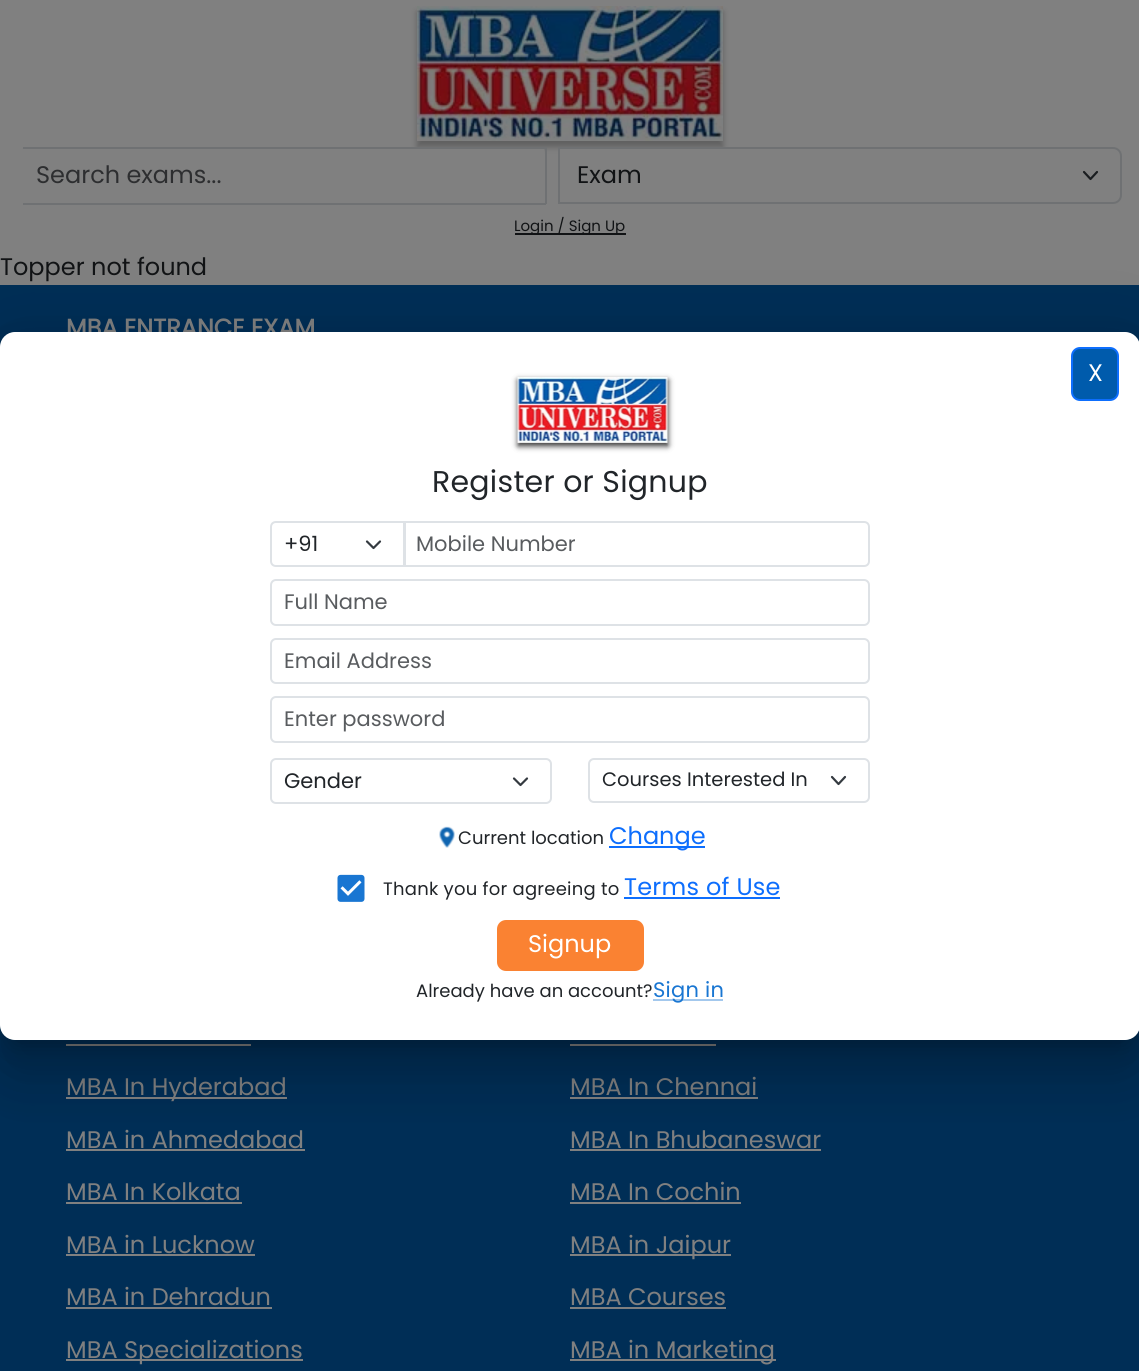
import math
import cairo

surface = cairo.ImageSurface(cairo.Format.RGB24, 1139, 1371)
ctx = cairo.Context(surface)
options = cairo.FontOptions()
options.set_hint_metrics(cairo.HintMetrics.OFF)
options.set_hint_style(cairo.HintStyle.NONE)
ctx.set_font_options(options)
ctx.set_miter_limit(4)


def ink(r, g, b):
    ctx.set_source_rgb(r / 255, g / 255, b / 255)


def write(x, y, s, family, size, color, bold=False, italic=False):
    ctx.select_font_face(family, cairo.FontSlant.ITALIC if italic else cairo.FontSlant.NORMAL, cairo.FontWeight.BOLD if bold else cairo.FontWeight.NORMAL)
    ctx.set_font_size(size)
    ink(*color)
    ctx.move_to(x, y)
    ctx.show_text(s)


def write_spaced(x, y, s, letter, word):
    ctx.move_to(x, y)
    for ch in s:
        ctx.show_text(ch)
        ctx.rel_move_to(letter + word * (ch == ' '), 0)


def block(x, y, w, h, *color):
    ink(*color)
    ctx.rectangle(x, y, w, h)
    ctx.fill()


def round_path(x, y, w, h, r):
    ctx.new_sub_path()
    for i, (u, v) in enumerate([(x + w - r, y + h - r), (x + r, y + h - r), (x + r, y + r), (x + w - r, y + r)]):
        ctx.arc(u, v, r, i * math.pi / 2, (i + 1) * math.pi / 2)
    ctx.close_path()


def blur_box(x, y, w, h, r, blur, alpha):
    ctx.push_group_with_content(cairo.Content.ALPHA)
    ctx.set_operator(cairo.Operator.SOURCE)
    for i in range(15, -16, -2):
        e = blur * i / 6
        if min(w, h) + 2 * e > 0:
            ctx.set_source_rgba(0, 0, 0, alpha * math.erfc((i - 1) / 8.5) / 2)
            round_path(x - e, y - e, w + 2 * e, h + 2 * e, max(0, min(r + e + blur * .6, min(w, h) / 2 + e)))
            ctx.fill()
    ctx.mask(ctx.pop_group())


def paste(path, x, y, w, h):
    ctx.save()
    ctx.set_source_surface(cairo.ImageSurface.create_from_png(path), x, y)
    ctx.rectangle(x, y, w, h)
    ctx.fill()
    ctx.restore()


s1 = dict(family="Poppins", size=24, color=(45, 46, 48))
s2 = dict(family="Poppins", size=24, color=(17, 19, 21))
s3 = dict(family="Poppins", size=15, color=(17, 19, 21))
s4 = dict(family="Poppins", size=24, color=(128, 128, 128), bold=True)
s5 = dict(family="Poppins", size=24, color=(128, 128, 128))
s6 = dict(family="Poppins", size=24, color=(255, 255, 255))
s7 = dict(family="Poppins", size=21, color=(33, 37, 41))
s8 = dict(family="Poppins", size=21, color=(89, 92, 95))
s9 = dict(family="Poppins", size=19.5, color=(33, 37, 41))
s10 = dict(family="Poppins", size=18, color=(33, 37, 41))
s11 = dict(family="Poppins", size=24, color=(13, 110, 253))

ink(128, 128, 128)
ctx.paint()
ink(0, 0, 0)
blur_box(417, 12, 306, 135, 0, 3, 0.25)
paste("pic1.png", 417, 6, 306, 135)
ink(128, 128, 128)
ctx.new_path()
ctx.move_to(27, 148)
ctx.line_to(544, 148)
ctx.line_to(544, 202)
ctx.line_to(27, 202)
ctx.curve_to(22, 202, 18, 199, 18, 195)
ctx.line_to(18, 156)
ctx.curve_to(18, 152, 22, 148, 27, 148)
ctx.close_path()
ctx.fill()
block(23, 147, 523, 2, 111, 113, 115)
block(545, 147, 2, 57, 111, 113, 115)
block(23, 203, 523, 2, 111, 113, 115)
write(36, 183, "Search exams...", **s1)
ink(128, 128, 128)
ctx.new_path()
ctx.move_to(558, 147)
ctx.line_to(1113, 147)
ctx.curve_to(1118, 147, 1122, 151, 1122, 156)
ctx.line_to(1122, 195)
ctx.curve_to(1122, 200, 1118, 204, 1113, 204)
ctx.line_to(558, 204)
ctx.close_path()
ctx.fill()
ctx.new_path()
ctx.move_to(1084, 172)
ctx.line_to(1090.5, 179)
ctx.line_to(1097, 172)
ink(26, 29, 32)
ctx.set_line_width(2.2)
ctx.set_line_cap(cairo.LineCap.ROUND)
ctx.set_line_join(cairo.LineJoin.ROUND)
ctx.stroke()
ctx.new_path()
ctx.move_to(559, 148)
ctx.line_to(1113, 148)
ctx.curve_to(1117.5, 148, 1121, 151.5, 1121, 156)
ctx.line_to(1121, 195)
ctx.curve_to(1121, 199.5, 1117.5, 203, 1113, 203)
ctx.line_to(559, 203)
ctx.close_path()
ink(111, 113, 115)
ctx.set_line_width(2)
ctx.set_line_cap(cairo.LineCap.BUTT)
ctx.set_line_join(cairo.LineJoin.MITER)
ctx.stroke()
write(577, 183, "Exam", **s2)
block(515, 233, 111, 2, 17, 19, 21)
write(514, 231, "Login / Sign Up", **s3)
write(0, 275, "Topper not found", **s2)
block(0, 285, 1139, 1086, 0, 46, 86)
write(66, 336, "MBA ENTRANCE EXAM", **s4)
block(66, 1044, 185, 2, 128, 128, 128)
block(570, 1044, 146, 2, 128, 128, 128)
block(66, 1097, 221, 2, 128, 128, 128)
write(66, 1095, "MBA In Hyderabad", **s5)
write(570, 1095, "MBA In Chennai", **s5)
block(570, 1097, 188, 2, 128, 128, 128)
write(66, 1148, "MBA in Ahmedabad", **s5)
block(66, 1149, 239, 2, 128, 128, 128)
write(570, 1148, "MBA In Bhubaneswar", **s5)
block(570, 1149, 251, 2, 128, 128, 128)
write(66, 1200, "MBA In Kolkata", **s5)
block(66, 1202, 176, 2, 128, 128, 128)
write(570, 1200, "MBA In Cochin", **s5)
block(570, 1202, 171, 2, 128, 128, 128)
write(66, 1253, "MBA in Lucknow", **s5)
block(66, 1254, 189, 2, 128, 128, 128)
block(570, 1254, 161, 2, 128, 128, 128)
write(570, 1253, "MBA in Jaipur", **s5)
write(66, 1305, "MBA in Dehradun", **s5)
block(66, 1307, 206, 2, 128, 128, 128)
write(570, 1305, "MBA Courses", **s5)
block(570, 1307, 156, 2, 128, 128, 128)
block(66, 1359, 237, 2, 128, 128, 128)
write(66, 1358, "MBA Specializations", **s5)
block(570, 1359, 206, 2, 128, 128, 128)
write(570, 1358, "MBA in Marketing", **s5)
ink(0, 0, 0)
blur_box(-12, 333, 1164, 732, 27, 34.5, 0.12)
blur_box(-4, 363, 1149, 717, 20, 28.5, 0.14)
blur_box(11, 359, 1119, 687, 5, 11, 0.2)
ink(255, 255, 255)
round_path(0, 332, 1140, 708, 15)
ctx.fill()
ink(0, 0, 0)
blur_box(518, 380, 150, 66, 0, 3, 0.8)
paste("pic2.png", 517, 377, 151, 66)
ink(0, 91, 172)
round_path(1072, 348, 46, 52, 8)
ctx.fill_preserve()
ink(13, 110, 253)
ctx.stroke()
write(1088, 381, "X", **s6)
ctx.set_font_size(30)
ink(33, 37, 41)
write_spaced(432, 492, "Register or Signup", 0.25, 0)
ctx.new_path()
ctx.move_to(367, 541.5)
ctx.line_to(373.5, 548)
ctx.line_to(380, 541.5)
ink(52, 58, 64)
ctx.set_line_width(2.2)
ctx.set_line_cap(cairo.LineCap.ROUND)
ctx.set_line_join(cairo.LineJoin.ROUND)
ctx.stroke()
ctx.new_path()
ctx.move_to(276, 522)
ctx.line_to(404, 522)
ctx.line_to(404, 566)
ctx.line_to(276, 566)
ctx.curve_to(273, 566, 271, 564, 271, 561)
ctx.line_to(271, 527)
ctx.curve_to(271, 524, 273, 522, 276, 522)
ctx.close_path()
ink(222, 226, 230)
ctx.set_line_width(2)
ctx.set_line_cap(cairo.LineCap.BUTT)
ctx.set_line_join(cairo.LineJoin.MITER)
ctx.stroke()
write(284, 551, "+91", **s7)
ctx.new_path()
ctx.move_to(405, 522)
ctx.line_to(864, 522)
ctx.curve_to(867, 522, 869, 524, 869, 527)
ctx.line_to(869, 561)
ctx.curve_to(869, 564, 867, 566, 864, 566)
ctx.line_to(405, 566)
ctx.close_path()
ink(222, 226, 230)
ctx.stroke()
write(416, 551, "Mobile Number", **s8)
round_path(271, 580, 598, 45, 5)
ink(222, 226, 230)
ctx.stroke()
write(284, 609, "Full Name", **s8)
round_path(271, 639, 598, 44, 5)
ink(222, 226, 230)
ctx.stroke()
write(284, 668, "Email Address", **s8)
round_path(271, 697, 598, 45, 5)
ink(222, 226, 230)
ctx.stroke()
write(284, 726, "Enter password", **s8)
ctx.new_path()
ctx.move_to(514, 778.5)
ctx.line_to(520.5, 785)
ctx.line_to(527, 778.5)
ink(52, 58, 64)
ctx.set_line_width(2.2)
ctx.set_line_cap(cairo.LineCap.ROUND)
ctx.set_line_join(cairo.LineJoin.ROUND)
ctx.stroke()
round_path(271, 759, 280, 44, 5)
ink(222, 226, 230)
ctx.set_line_width(2)
ctx.set_line_cap(cairo.LineCap.BUTT)
ctx.set_line_join(cairo.LineJoin.MITER)
ctx.stroke()
write(284, 788, "Gender", **s7)
ctx.new_path()
ctx.move_to(832, 777)
ctx.line_to(838.5, 784)
ctx.line_to(845, 777)
ink(52, 58, 64)
ctx.set_line_width(2.2)
ctx.set_line_cap(cairo.LineCap.ROUND)
ctx.set_line_join(cairo.LineJoin.ROUND)
ctx.stroke()
round_path(589, 759, 280, 43, 5)
ink(222, 226, 230)
ctx.set_line_width(2)
ctx.set_line_cap(cairo.LineCap.BUTT)
ctx.set_line_join(cairo.LineJoin.MITER)
ctx.stroke()
write(602, 786, "Courses Interested In", **s9)
paste("pic3.png", 439, 826, 16, 22)
write(458, 844, "Current location", **s10)
block(609, 846, 96, 2, 13, 110, 253)
write(609, 844, "Change", **s11)
paste("pic4.png", 337, 874, 28, 28)
ctx.set_font_size(18)
ink(33, 37, 41)
write_spaced(383, 895, "Thank you for agreeing to", 0.25, 0)
block(624, 897, 156, 2, 13, 110, 253)
ctx.set_font_size(24)
write_spaced(624, 895, "Terms of Use", 0.25, 0)
ink(250, 130, 50)
round_path(497, 920, 147, 51, 9)
ctx.fill()
write(528, 952, "Signup", **s6)
write(416, 997, "Already have an account?", **s10)
block(653, 999, 70, 2, 163, 200, 237)
ctx.set_font_size(21)
ink(25, 118, 210)
write_spaced(653, 997, "Sign in", 0.25, 0)
surface.write_to_png("screenshot.png")
